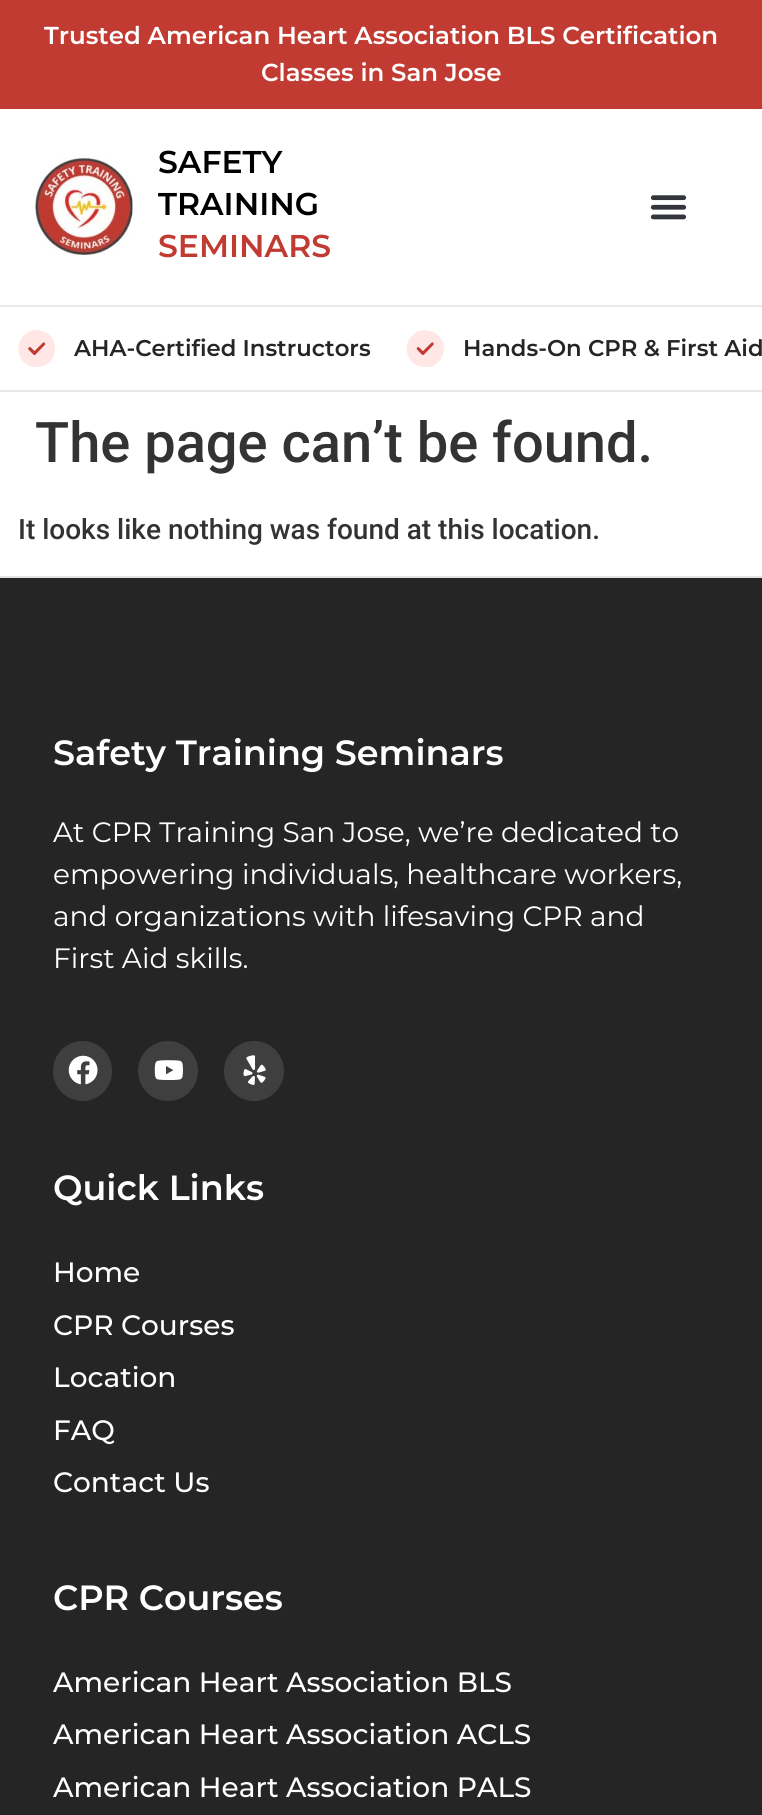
import math
import cairo

surface = cairo.ImageSurface(cairo.Format.RGB24, 762, 1815)
ctx = cairo.Context(surface)
options = cairo.FontOptions()
options.set_hint_metrics(cairo.HintMetrics.OFF)
options.set_hint_style(cairo.HintStyle.NONE)
ctx.set_font_options(options)
ctx.set_miter_limit(4)


def ink(r, g, b):
    ctx.set_source_rgb(r / 255, g / 255, b / 255)


def write(x, y, s, family, size, color, bold=False, italic=False):
    ctx.select_font_face(family, cairo.FontSlant.ITALIC if italic else cairo.FontSlant.NORMAL, cairo.FontWeight.BOLD if bold else cairo.FontWeight.NORMAL)
    ctx.set_font_size(size)
    ink(*color)
    ctx.move_to(x, y)
    ctx.show_text(s)


def block(x, y, w, h, *color):
    ink(*color)
    ctx.rectangle(x, y, w, h)
    ctx.fill()


def round_path(x, y, w, h, r):
    ctx.new_sub_path()
    for i, (u, v) in enumerate([(x + w - r, y + h - r), (x + r, y + h - r), (x + r, y + r), (x + w - r, y + r)]):
        ctx.arc(u, v, r, i * math.pi / 2, (i + 1) * math.pi / 2)
    ctx.close_path()


def paste(path, x, y, w, h):
    ctx.save()
    ctx.set_source_surface(cairo.ImageSurface.create_from_png(path), x, y)
    ctx.rectangle(x, y, w, h)
    ctx.fill()
    ctx.restore()


s1 = dict(family="Montserrat SemiBold", size=24.5, color=(255, 255, 255))
s2 = dict(family="Montserrat SemiBold", size=31.5, color=(0, 0, 0))
s3 = dict(family="Montserrat SemiBold", size=31.5, color=(193, 59, 50))
s4 = dict(family="Montserrat SemiBold", size=22.75, color=(37, 37, 37))
s5 = dict(family="Roboto Medium", size=56, color=(51, 51, 51))
s6 = dict(family="Roboto Medium", size=28, color=(51, 51, 51))
s7 = dict(family="Montserrat SemiBold", size=35, color=(255, 255, 255))
s8 = dict(family="Montserrat", size=28, color=(255, 255, 255))
s9 = dict(family="Montserrat Medium", size=28, color=(255, 255, 255))

ink(255, 255, 255)
ctx.paint()
block(0, 0, 762, 109, 193, 59, 50)
write(44, 44, "Trusted American Heart Association BLS Certification", **s1)
write(261, 81, "Classes in San Jose", **s1)
block(0, 305, 762, 2, 232, 232, 232)
paste("pic1.png", 35, 157, 98, 98)
write(158, 173, "SAFETY", **s2)
write(158, 215, "TRAINING", **s2)
write(158, 257, "SEMINARS", **s3)
paste("pic2.png", 650, 195, 37, 25)
block(0, 390, 762, 2, 232, 232, 232)
paste("pic3.png", 18, 330, 37, 37)
write(74, 356, "AHA-Certified Instructors", **s4)
paste("pic4.png", 407, 330, 37, 37)
write(463, 356, "Hands-On CPR & First Aid", **s4)
write(35, 462, "The page can’t be found.", **s5)
write(18, 539, "It looks like nothing was found at this location.", **s6)
block(0, 578, 762, 1237, 37, 37, 37)
block(0, 576, 762, 2, 227, 227, 227)
write(53, 765, "Safety Training Seminars", **s7)
write(53, 842, "At CPR Training San Jose, we’re dedicated to", **s8)
write(53, 884, "empowering individuals, healthcare workers,", **s8)
write(53, 926, "and organizations with lifesaving CPR and", **s8)
write(53, 968, "First Aid skills.", **s8)
ink(63, 63, 63)
round_path(53, 1041, 59, 60, 29.5)
ctx.fill()
paste("pic5.png", 68, 1055, 30, 30)
ctx.arc(168, 1071, 30, 0, 2 * math.pi)
ctx.fill()
paste("pic6.png", 154, 1060, 29, 21)
ctx.arc(254, 1071, 30, 0, 2 * math.pi)
ctx.fill()
paste("pic7.png", 243, 1055, 23, 30)
write(53, 1200, "Quick Links", **s7)
write(53, 1282, "Home", **s9)
write(53, 1335, "CPR Courses", **s9)
write(53, 1387, "Location", **s9)
write(53, 1440, "FAQ", **s9)
write(53, 1492, "Contact Us", **s9)
write(53, 1610, "CPR Courses", **s7)
write(53, 1692, "American Heart Association BLS", **s9)
write(53, 1744, "American Heart Association ACLS", **s9)
write(53, 1797, "American Heart Association PALS", **s9)
surface.write_to_png("screenshot.png")
